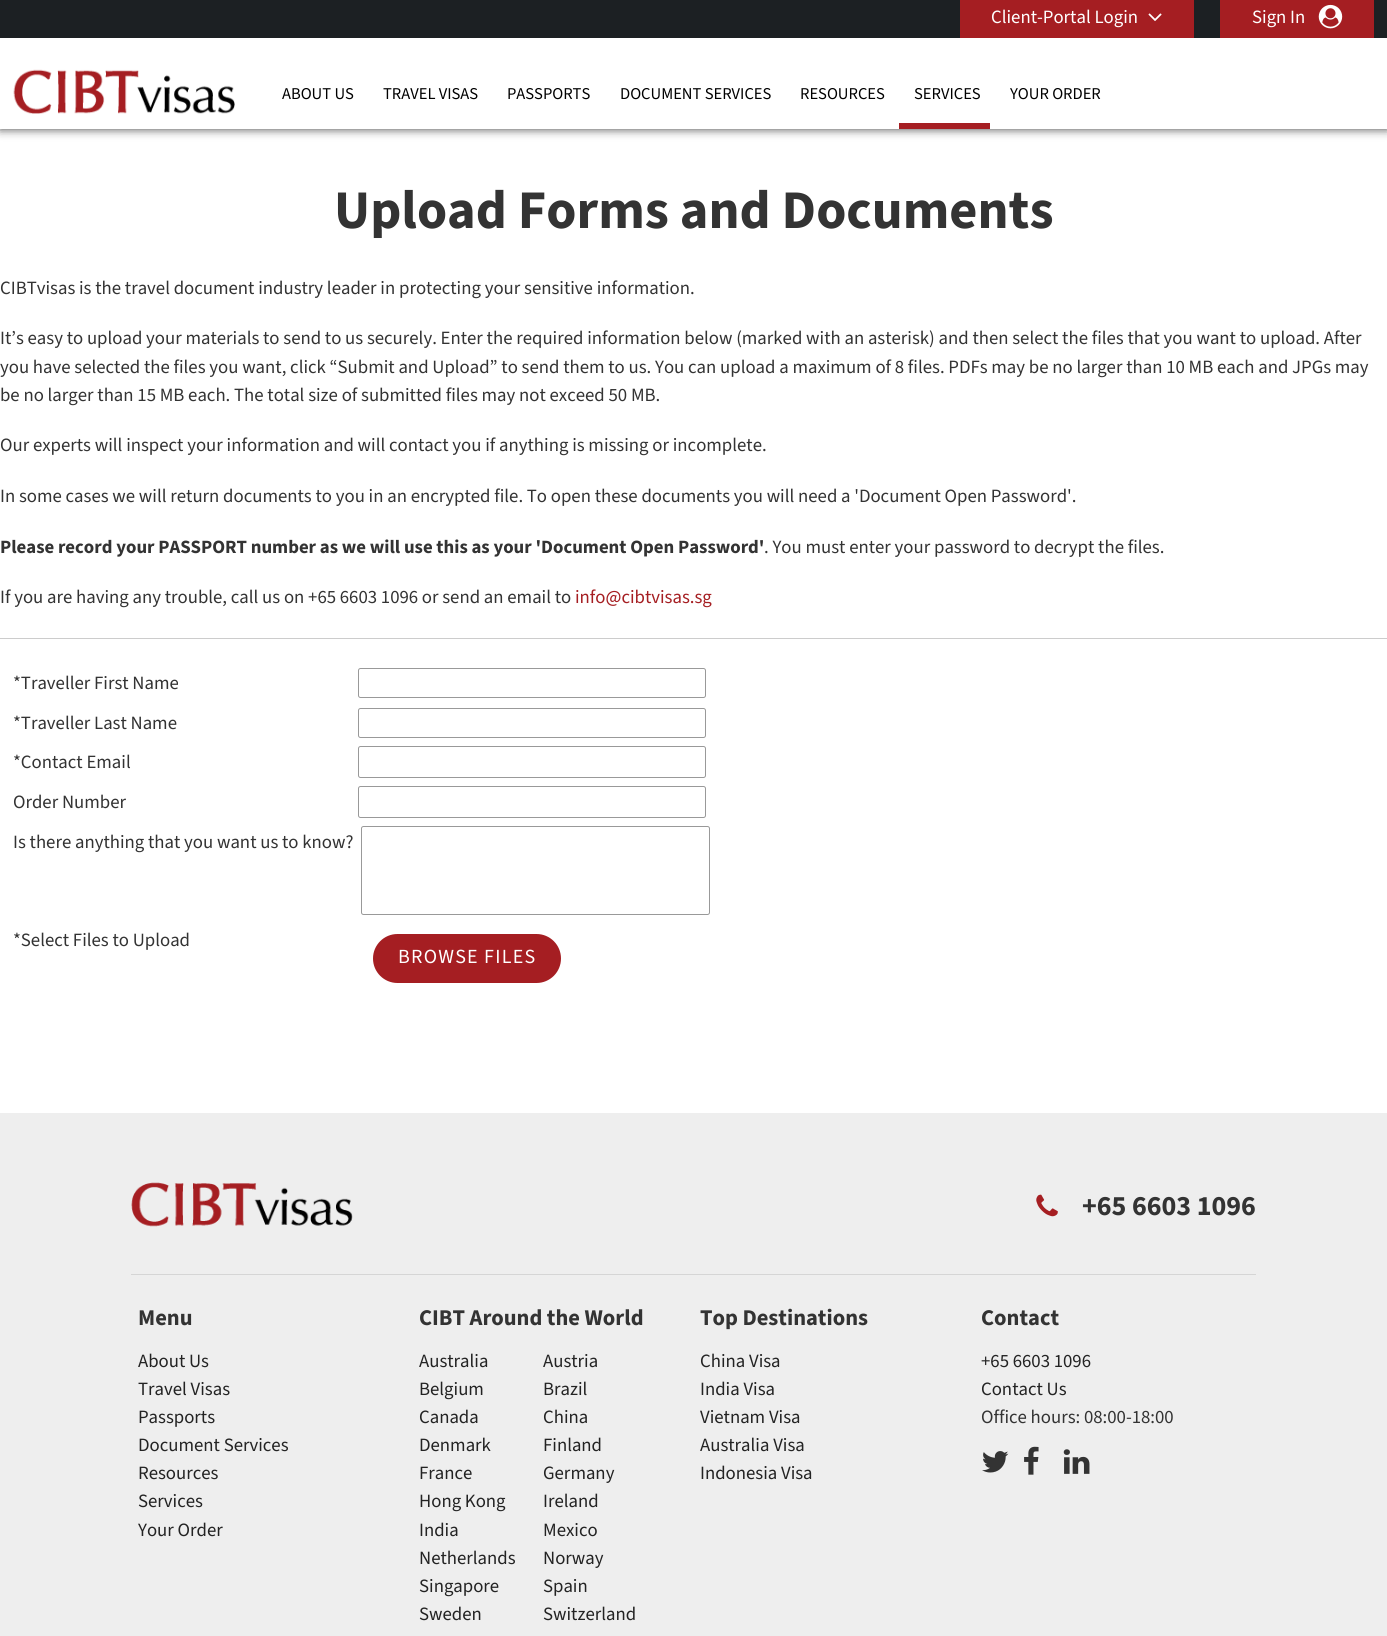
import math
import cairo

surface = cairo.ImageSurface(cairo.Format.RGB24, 1387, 1636)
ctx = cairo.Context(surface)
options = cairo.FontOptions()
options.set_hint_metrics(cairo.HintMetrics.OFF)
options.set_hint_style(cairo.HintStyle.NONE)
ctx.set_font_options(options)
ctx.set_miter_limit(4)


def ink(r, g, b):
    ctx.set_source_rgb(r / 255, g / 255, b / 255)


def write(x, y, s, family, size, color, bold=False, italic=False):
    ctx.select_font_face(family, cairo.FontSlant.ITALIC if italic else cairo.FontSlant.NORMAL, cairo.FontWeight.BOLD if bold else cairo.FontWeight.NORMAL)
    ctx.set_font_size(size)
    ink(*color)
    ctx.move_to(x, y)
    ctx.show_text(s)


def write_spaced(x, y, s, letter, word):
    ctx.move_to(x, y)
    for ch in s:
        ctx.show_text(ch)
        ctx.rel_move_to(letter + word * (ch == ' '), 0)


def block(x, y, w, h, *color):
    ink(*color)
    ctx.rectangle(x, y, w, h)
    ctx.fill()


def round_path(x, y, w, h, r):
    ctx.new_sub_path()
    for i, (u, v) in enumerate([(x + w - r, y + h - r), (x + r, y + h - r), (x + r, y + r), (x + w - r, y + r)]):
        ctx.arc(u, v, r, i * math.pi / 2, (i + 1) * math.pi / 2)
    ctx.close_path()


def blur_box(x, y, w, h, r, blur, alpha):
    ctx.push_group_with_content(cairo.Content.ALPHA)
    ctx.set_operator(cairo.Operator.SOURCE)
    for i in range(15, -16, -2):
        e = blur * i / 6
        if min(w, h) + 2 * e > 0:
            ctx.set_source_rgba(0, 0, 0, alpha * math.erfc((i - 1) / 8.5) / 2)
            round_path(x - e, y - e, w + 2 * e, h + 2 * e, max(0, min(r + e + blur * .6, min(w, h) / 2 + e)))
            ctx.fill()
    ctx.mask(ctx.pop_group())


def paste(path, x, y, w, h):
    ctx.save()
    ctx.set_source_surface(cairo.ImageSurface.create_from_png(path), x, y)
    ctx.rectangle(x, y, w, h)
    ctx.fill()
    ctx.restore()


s1 = dict(family="Source Sans 3", size=18.75, color=(255, 255, 255))
s2 = dict(family="Source Sans 3", size=16.5, color=(0, 0, 0))
s3 = dict(family="Source Sans 3", size=54.4, color=(51, 51, 51), bold=True)
s4 = dict(family="Source Sans 3", size=18.75, color=(51, 51, 51))
s5 = dict(family="Source Sans 3", size=18.75, color=(51, 51, 51), bold=True)
s6 = dict(family="Source Sans 3", size=18.75, color=(165, 30, 34))
s7 = dict(family="Source Sans 3", size=28, color=(51, 51, 51), bold=True)
s8 = dict(family="Source Sans 3", size=22.5, color=(51, 51, 51), bold=True)
s9 = dict(family="Source Sans 3", size=18.75, color=(35, 35, 35))

ink(255, 255, 255)
ctx.paint()
ink(0, 0, 0)
blur_box(0, 0, 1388, 129, 0, 5, 0.75)
block(0, 0, 1387, 38, 28, 32, 35)
block(960, 0, 234, 38, 165, 30, 34)
write(991, 23, "Client-Portal Login", **s1)
paste("pic1.png", 1148, 13, 14, 8)
block(1220, 0, 154, 38, 165, 30, 34)
write(1252, 23, "Sign In", **s1)
paste("pic2.png", 1318, 4, 25, 25)
block(0, 38, 1387, 91, 255, 255, 255)
paste("pic3.png", 13, 69, 222, 45)
write(282, 99, "ABOUT US", **s2)
write(383, 99, "TRAVEL VISAS", **s2)
write(507, 99, "PASSPORTS", **s2)
write(620, 99, "DOCUMENT SERVICES", **s2)
write(800, 99, "RESOURCES", **s2)
block(899, 123, 91, 6, 165, 30, 34)
write(914, 99, "SERVICES", **s2)
write(1010, 99, "YOUR ORDER", **s2)
write(334, 228, "Upload Forms and Documents", **s3)
write(0, 294, "CIBTvisas is the travel document industry leader in protecting your sensitive information.", **s4)
write(0, 344, "It’s easy to upload your materials to send to us securely. Enter the required information below (marked with an asterisk) and then select the files that you want to upload. After", **s4)
write(0, 373, "you have selected the files you want, click “Submit and Upload” to send them to us. You can upload a maximum of 8 files. PDFs may be no larger than 10 MB each and JPGs may", **s4)
write(0, 401, "be no larger than 15 MB each. The total size of submitted files may not exceed 50 MB.", **s4)
write(0, 451, "Our experts will inspect your information and will contact you if anything is missing or incomplete.", **s4)
write(0, 502, "In some cases we will return documents to you in an encrypted file. To open these documents you will need a 'Document Open Password'.", **s4)
write(0, 553, "Please record your PASSPORT number as we will use this as your 'Document Open Password'", **s5)
write(764, 553, ". You must enter your password to decrypt the files.", **s4)
write(0, 603, "If you are having any trouble, call us on +65 6603 1096 or send an email to", **s4)
write(575, 603, "info@cibtvisas.sg", **s6)
block(0, 638, 1387, 1, 204, 204, 204)
write(13, 689, "*Traveller First Name", **s4)
round_path(358.5, 668.5, 347, 29, 2)
ink(153, 153, 153)
ctx.set_line_width(1)
ctx.stroke()
write(13, 729, "*Traveller Last Name", **s4)
round_path(358.5, 708.5, 347, 29, 2)
ink(153, 153, 153)
ctx.stroke()
write(13, 768, "*Contact Email", **s4)
round_path(358.5, 746.5, 347, 31, 2)
ink(153, 153, 153)
ctx.stroke()
write(13, 808, "Order Number", **s4)
round_path(358.5, 786.5, 347, 31, 2)
ink(153, 153, 153)
ctx.stroke()
write(13, 848, "Is there anything that you want us to know?", **s4)
round_path(361.5, 826.5, 348, 88, 2)
ink(153, 153, 153)
ctx.stroke()
write(13, 946, "*Select Files to Upload", **s4)
ink(165, 30, 34)
round_path(373, 934, 188, 49, 24.5)
ctx.fill()
ctx.set_font_size(20)
ink(255, 255, 255)
write_spaced(398, 963, "BROWSE FILES", 1.25, 0)
block(0, 1113, 1387, 523, 238, 238, 238)
block(131, 1274, 1125, 1, 213, 213, 213)
paste("pic4.png", 131, 1182, 222, 45)
paste("pic5.png", 1036, 1194, 22, 23)
write(1082, 1215, "+65 6603 1096", **s7)
write(138, 1325, "Menu", **s8)
write(138, 1367, "About Us", **s9)
write(138, 1395, "Travel Visas", **s9)
write(138, 1423, "Passports", **s9)
write(138, 1451, "Document Services", **s9)
write(138, 1479, "Resources", **s9)
write(138, 1507, "Services", **s9)
write(138, 1536, "Your Order", **s9)
write(419, 1325, "CIBT Around the World", **s8)
write(419, 1367, "Australia", **s9)
write(543, 1367, "Austria", **s9)
write(419, 1395, "Belgium", **s9)
write(543, 1395, "Brazil", **s9)
write(419, 1423, "Canada", **s9)
write(543, 1423, "China", **s9)
write(419, 1451, "Denmark", **s9)
write(543, 1451, "Finland", **s9)
write(419, 1479, "France", **s9)
write(543, 1479, "Germany", **s9)
write(419, 1507, "Hong Kong", **s9)
write(543, 1507, "Ireland", **s9)
write(419, 1536, "India", **s9)
write(543, 1536, "Mexico", **s9)
write(419, 1564, "Netherlands", **s9)
write(543, 1564, "Norway", **s9)
write(419, 1592, "Singapore", **s9)
write(543, 1592, "Spain", **s9)
write(419, 1620, "Sweden", **s9)
write(543, 1620, "Switzerland", **s9)
write(700, 1325, "Top Destinations", **s8)
write(700, 1367, "China Visa", **s9)
write(700, 1395, "India Visa", **s9)
write(700, 1423, "Vietnam Visa", **s9)
write(700, 1451, "Australia Visa", **s9)
write(700, 1479, "Indonesia Visa", **s9)
write(981, 1325, "Contact", **s8)
write(981, 1367, "+65 6603 1096", **s9)
write(981, 1395, "Contact Us", **s9)
write(981, 1423, "Office hours: 08:00-18:00", **s4)
paste("pic6.png", 982, 1451, 27, 22)
paste("pic7.png", 1024, 1446, 15, 29)
paste("pic8.png", 1063, 1449, 27, 25)
surface.write_to_png("screenshot.png")
